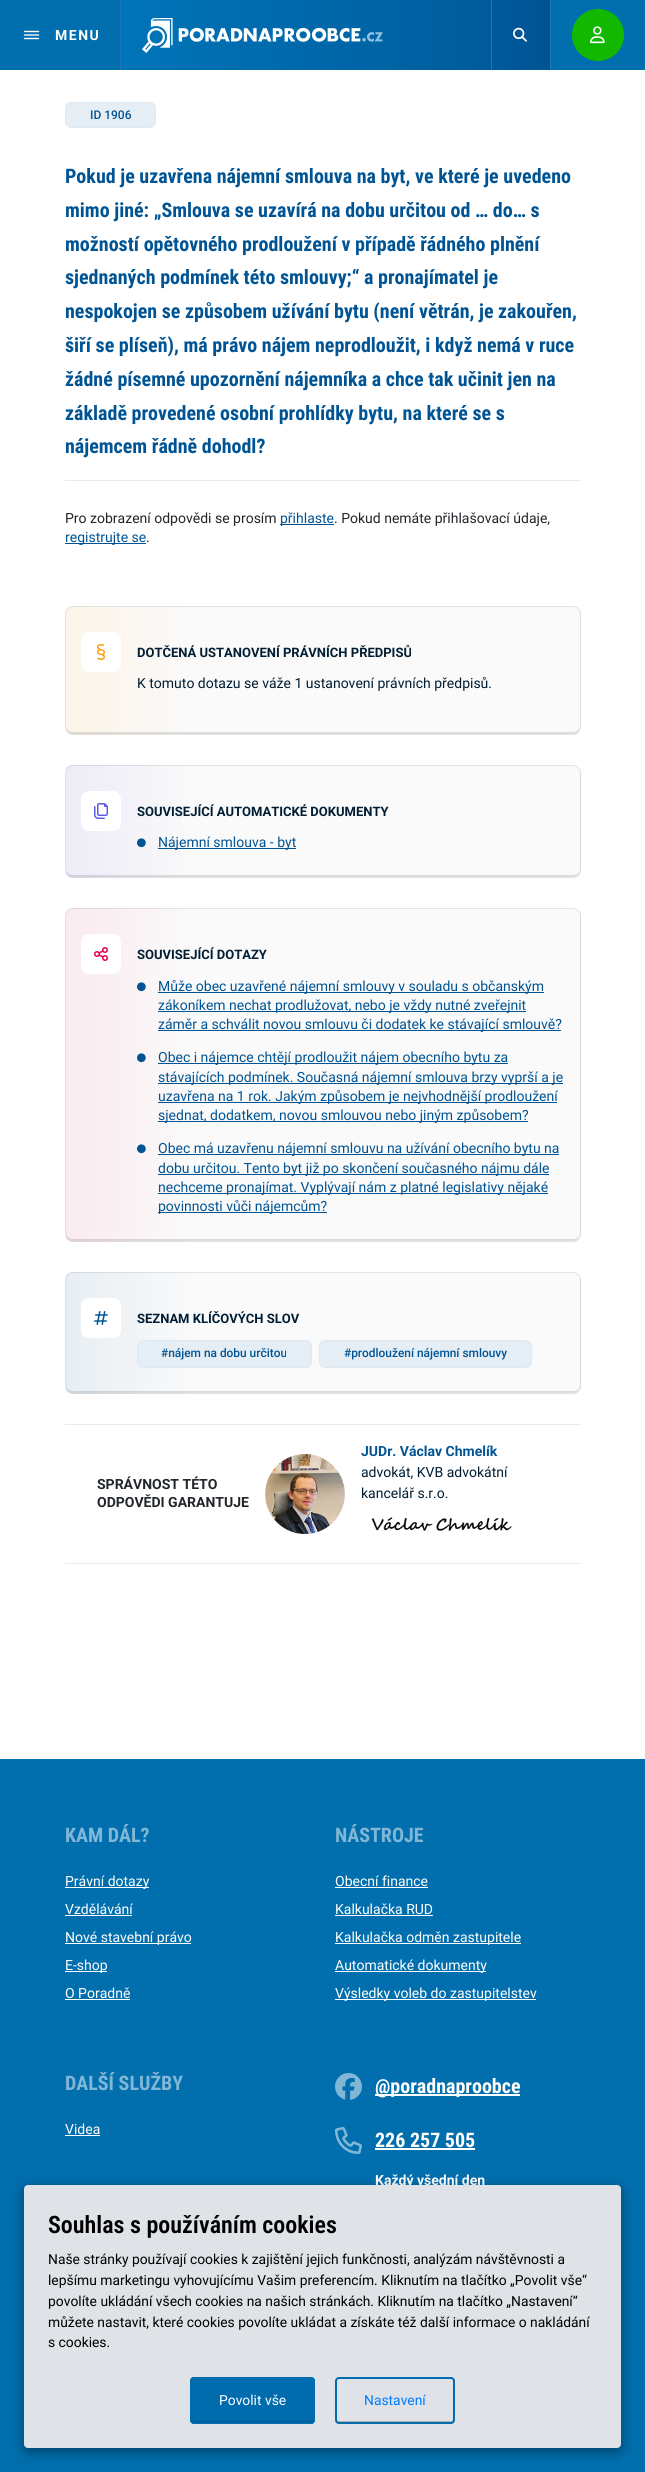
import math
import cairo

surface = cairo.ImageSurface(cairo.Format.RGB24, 645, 2472)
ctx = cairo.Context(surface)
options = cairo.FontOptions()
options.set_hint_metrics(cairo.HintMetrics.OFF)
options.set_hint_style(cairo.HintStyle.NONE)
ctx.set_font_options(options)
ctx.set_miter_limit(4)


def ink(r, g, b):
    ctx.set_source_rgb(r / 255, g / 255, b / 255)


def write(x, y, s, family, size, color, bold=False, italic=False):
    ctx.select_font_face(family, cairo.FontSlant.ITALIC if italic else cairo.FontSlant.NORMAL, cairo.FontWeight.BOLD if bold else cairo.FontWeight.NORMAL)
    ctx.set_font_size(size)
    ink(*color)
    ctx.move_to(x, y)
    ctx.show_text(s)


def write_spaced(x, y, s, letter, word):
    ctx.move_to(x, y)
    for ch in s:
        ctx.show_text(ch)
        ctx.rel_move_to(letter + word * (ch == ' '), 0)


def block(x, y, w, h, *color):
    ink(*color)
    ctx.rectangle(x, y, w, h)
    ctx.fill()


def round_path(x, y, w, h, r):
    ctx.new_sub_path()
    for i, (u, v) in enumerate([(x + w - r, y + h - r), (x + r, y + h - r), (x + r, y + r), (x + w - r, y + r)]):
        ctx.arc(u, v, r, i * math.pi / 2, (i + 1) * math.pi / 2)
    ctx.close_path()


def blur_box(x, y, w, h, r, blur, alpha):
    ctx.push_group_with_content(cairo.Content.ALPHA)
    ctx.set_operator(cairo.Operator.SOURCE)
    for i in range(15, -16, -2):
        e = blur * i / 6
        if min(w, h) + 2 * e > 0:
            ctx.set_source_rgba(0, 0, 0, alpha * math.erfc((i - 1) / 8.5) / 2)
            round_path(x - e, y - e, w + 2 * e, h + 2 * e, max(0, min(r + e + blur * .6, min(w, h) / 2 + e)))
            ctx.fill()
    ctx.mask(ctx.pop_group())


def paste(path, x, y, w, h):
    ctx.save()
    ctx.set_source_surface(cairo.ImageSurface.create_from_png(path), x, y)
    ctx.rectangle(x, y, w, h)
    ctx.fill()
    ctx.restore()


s1 = dict(family="Roboto Medium", size=12, color=(0, 84, 148))
s2 = dict(family="Roboto Condensed", size=20, color=(0, 84, 148), bold=True)
s3 = dict(family="Roboto", size=14, color=(33, 37, 41))
s4 = dict(family="Roboto", size=14, color=(0, 84, 148))
s5 = dict(family="Roboto", size=13, color=(0, 29, 51), bold=True)
s6 = dict(family="Roboto", size=14, color=(0, 29, 51))
s7 = dict(family="Roboto Medium", size=11.9, color=(0, 84, 148))
s8 = dict(family="Roboto", size=14, color=(33, 37, 41), bold=True)
s9 = dict(family="Roboto", size=14, color=(0, 84, 148), bold=True)
s10 = dict(family="Roboto Condensed", size=20, color=(128, 183, 214), bold=True)
s11 = dict(family="Roboto", size=14, color=(255, 255, 255))
s12 = dict(family="Roboto Condensed", size=20, color=(255, 255, 255), bold=True)
s13 = dict(family="Roboto", size=14, color=(255, 255, 255), bold=True)
s14 = dict(family="Roboto Condensed SemiBold", size=24, color=(0, 0, 0))
s15 = dict(family="Roboto", size=13.85, color=(0, 0, 0))
s16 = dict(family="Roboto", size=13.85, color=(255, 255, 255))
s17 = dict(family="Roboto", size=13.85, color=(0, 123, 255))

ink(255, 255, 255)
ctx.paint()
block(0, 0, 645, 70, 1, 110, 173)
paste("pic1.png", 23, 30, 17, 10)
ctx.select_font_face("Roboto", cairo.FontSlant.NORMAL, cairo.FontWeight.BOLD)
ctx.set_font_size(14)
ink(255, 255, 255)
write_spaced(55, 40, "MENU", 1.5, 0)
gradient = cairo.LinearGradient(120, 35, 550, 35)
gradient.add_color_stop_rgba(0, 0, 0.455, 0.722, 1)
gradient.add_color_stop_rgba(0.67, 0, 0.384, 0.639, 1)
gradient.add_color_stop_rgba(1, 0, 0.329, 0.58, 1)
ctx.set_source(gradient)
ctx.rectangle(121, 0, 429, 70)
ctx.fill()
block(120, 0, 1, 70, 27, 118, 187)
paste("pic2.png", 142, 18, 241, 35)
block(491, 0, 1, 70, 27, 118, 187)
paste("pic3.png", 513, 27, 14, 15)
block(550, 0, 1, 70, 27, 118, 187)
ink(18, 184, 0)
ctx.arc(598, 35, 26, 0, 2 * math.pi)
ctx.fill()
paste("pic4.png", 590, 26, 15, 18)
ink(229, 238, 245)
round_path(65.5, 102.5, 90, 25, 5.5)
ctx.fill_preserve()
ink(224, 232, 240)
ctx.set_line_width(1)
ctx.stroke()
write(90, 119, "ID 1906", **s1)
block(65, 480, 516, 1, 233, 235, 237)
write(65, 183, "Pokud je uzavřena nájemní smlouva na byt, ve které je uvedeno", **s2)
write(65, 217, "mimo jiné: „Smlouva se uzavírá na dobu určitou od … do… s", **s2)
write(65, 251, "možností opětovného prodloužení v případě řádného plnění", **s2)
write(65, 284, "sjednaných podmínek této smlouvy;“ a pronajímatel je", **s2)
write(65, 318, "nespokojen se způsobem užívání bytu (není větrán, je zakouřen,", **s2)
write(65, 352, "šiří se plíseň), má právo nájem neprodloužit, i když nemá v ruce", **s2)
write(65, 386, "žádné písemné upozornění nájemníka a chce tak učinit jen na", **s2)
write(65, 420, "základě provedené osobní prohlídky bytu, na které se s", **s2)
write(65, 453, "nájemcem řádně dohodl?", **s2)
write(65, 523, "Pro zobrazení odpovědi se prosím", **s3)
block(280, 524, 54, 1, 0, 84, 148)
write(280, 523, "přihlaste", **s4)
write(334, 523, ". Pokud nemáte přihlašovací údaje,", **s3)
block(65, 543, 81, 1, 0, 84, 148)
write(65, 542, "registrujte se", **s4)
write(146, 542, ".", **s3)
ctx.save()
round_path(65, 606, 516, 129, 8)
ctx.clip()
gradient = cairo.LinearGradient(-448, 671, 66, 671)
gradient.add_color_stop_rgba(0, 0.988, 0.957, 0.91, 1)
gradient.add_color_stop_rgba(0.25, 0.98, 0.98, 0.98, 1)
gradient.add_color_stop_rgba(1, 0.98, 0.98, 0.98, 1)
ctx.set_source(gradient)
ctx.rectangle(65, 606, 1, 129)
ctx.fill()
gradient = cairo.LinearGradient(66, 671, 580, 671)
gradient.add_color_stop_rgba(0, 0.988, 0.957, 0.91, 1)
gradient.add_color_stop_rgba(0.25, 0.98, 0.98, 0.98, 1)
gradient.add_color_stop_rgba(1, 0.98, 0.98, 0.98, 1)
ctx.set_source(gradient)
ctx.rectangle(66, 606, 514, 129)
ctx.fill()
gradient = cairo.LinearGradient(580, 671, 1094, 671)
gradient.add_color_stop_rgba(0, 0.988, 0.957, 0.91, 1)
gradient.add_color_stop_rgba(0.25, 0.98, 0.98, 0.98, 1)
gradient.add_color_stop_rgba(1, 0.98, 0.98, 0.98, 1)
ctx.set_source(gradient)
ctx.rectangle(580, 606, 1, 129)
ctx.fill()
ctx.restore()
ctx.set_source_rgba(0, 0, 0, 0.12)
ctx.new_path()
ctx.move_to(66, 725)
ctx.curve_to(66, 729, 68, 734, 73, 734)
ctx.line_to(573, 734)
ctx.curve_to(578, 734, 580, 729, 580, 725)
ctx.curve_to(580, 729, 577, 732, 573, 732)
ctx.line_to(73, 732)
ctx.curve_to(69, 732, 66, 729, 66, 725)
ctx.close_path()
ctx.fill()
round_path(65.5, 606.5, 515, 128, 7.5)
ctx.set_source_rgba(0, 0.114, 0.2, 0.1)
ctx.stroke()
ink(255, 255, 255)
round_path(81, 632, 40, 40, 8)
ctx.fill()
paste("pic5.png", 97, 644, 8, 16)
write(137, 657, "DOTČENÁ USTANOVENÍ PRÁVNÍCH PŘEDPISŮ", **s5)
write(137, 688, "K tomuto dotazu se váže 1 ustanovení právních předpisů.", **s6)
ctx.save()
round_path(65, 765, 516, 113, 8)
ctx.clip()
gradient = cairo.LinearGradient(-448, 822, 66, 822)
gradient.add_color_stop_rgba(0, 0.929, 0.925, 0.973, 1)
gradient.add_color_stop_rgba(0.25, 0.98, 0.98, 0.98, 1)
gradient.add_color_stop_rgba(1, 0.98, 0.98, 0.98, 1)
ctx.set_source(gradient)
ctx.rectangle(65, 765, 1, 113)
ctx.fill()
gradient = cairo.LinearGradient(66, 822, 580, 822)
gradient.add_color_stop_rgba(0, 0.929, 0.925, 0.973, 1)
gradient.add_color_stop_rgba(0.25, 0.98, 0.98, 0.98, 1)
gradient.add_color_stop_rgba(1, 0.98, 0.98, 0.98, 1)
ctx.set_source(gradient)
ctx.rectangle(66, 765, 514, 113)
ctx.fill()
gradient = cairo.LinearGradient(580, 822, 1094, 822)
gradient.add_color_stop_rgba(0, 0.929, 0.925, 0.973, 1)
gradient.add_color_stop_rgba(0.25, 0.98, 0.98, 0.98, 1)
gradient.add_color_stop_rgba(1, 0.98, 0.98, 0.98, 1)
ctx.set_source(gradient)
ctx.rectangle(580, 765, 1, 113)
ctx.fill()
ctx.restore()
ctx.set_source_rgba(0, 0, 0, 0.12)
ctx.new_path()
ctx.move_to(66, 868)
ctx.curve_to(66, 872, 68, 877, 73, 877)
ctx.line_to(573, 877)
ctx.curve_to(578, 877, 580, 872, 580, 868)
ctx.curve_to(580, 872, 577, 875, 573, 875)
ctx.line_to(73, 875)
ctx.curve_to(69, 875, 66, 872, 66, 868)
ctx.close_path()
ctx.fill()
round_path(65.5, 765.5, 515, 112, 7.5)
ctx.set_source_rgba(0, 0.114, 0.2, 0.1)
ctx.stroke()
ink(255, 255, 255)
round_path(81, 791, 40, 40, 8)
ctx.fill()
paste("pic6.png", 94, 803, 14, 16)
write(137, 816, "SOUVISEJÍCÍ AUTOMATICKÉ DOKUMENTY", **s5)
paste("pic7.png", 137, 838, 9, 10)
block(158, 848, 138, 1, 0, 84, 148)
write(158, 847, "Nájemní smlouva - byt", **s4)
ctx.save()
round_path(65, 908, 516, 334, 8)
ctx.clip()
gradient = cairo.LinearGradient(-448, 1075, 66, 1075)
gradient.add_color_stop_rgba(0, 0.98, 0.918, 0.937, 1)
gradient.add_color_stop_rgba(0.25, 0.98, 0.98, 0.98, 1)
gradient.add_color_stop_rgba(1, 0.98, 0.98, 0.98, 1)
ctx.set_source(gradient)
ctx.rectangle(65, 908, 1, 334)
ctx.fill()
gradient = cairo.LinearGradient(66, 1075, 580, 1075)
gradient.add_color_stop_rgba(0, 0.98, 0.918, 0.937, 1)
gradient.add_color_stop_rgba(0.25, 0.98, 0.98, 0.98, 1)
gradient.add_color_stop_rgba(1, 0.98, 0.98, 0.98, 1)
ctx.set_source(gradient)
ctx.rectangle(66, 908, 514, 334)
ctx.fill()
gradient = cairo.LinearGradient(580, 1075, 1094, 1075)
gradient.add_color_stop_rgba(0, 0.98, 0.918, 0.937, 1)
gradient.add_color_stop_rgba(0.25, 0.98, 0.98, 0.98, 1)
gradient.add_color_stop_rgba(1, 0.98, 0.98, 0.98, 1)
ctx.set_source(gradient)
ctx.rectangle(580, 908, 1, 334)
ctx.fill()
ctx.restore()
ctx.set_source_rgba(0, 0, 0, 0.12)
ctx.new_path()
ctx.move_to(66, 1232)
ctx.curve_to(66, 1236, 68, 1241, 73, 1241)
ctx.line_to(573, 1241)
ctx.curve_to(578, 1241, 580, 1236, 580, 1232)
ctx.curve_to(580, 1236, 577, 1239, 573, 1239)
ctx.line_to(73, 1239)
ctx.curve_to(69, 1239, 66, 1236, 66, 1232)
ctx.close_path()
ctx.fill()
round_path(65.5, 908.5, 515, 333, 7.5)
ctx.set_source_rgba(0, 0.114, 0.2, 0.1)
ctx.stroke()
ink(255, 255, 255)
round_path(81, 934, 40, 40, 8)
ctx.fill()
paste("pic8.png", 94, 947, 14, 14)
write(137, 959, "SOUVISEJÍCÍ DOTAZY", **s5)
paste("pic9.png", 137, 982, 9, 10)
block(158, 992, 386, 1, 0, 84, 148)
write(158, 991, "Může obec uzavřené nájemní smlouvy v souladu s občanským", **s4)
block(158, 1011, 368, 1, 0, 84, 148)
write(158, 1010, "zákoníkem nechat prodlužovat, nebo je vždy nutné zveřejnit", **s4)
block(158, 1030, 403, 1, 0, 84, 148)
write(158, 1029, "záměr a schválit novou smlouvu či dodatek ke stávající smlouvě?", **s4)
paste("pic9.png", 137, 1053, 9, 10)
block(158, 1063, 350, 1, 0, 84, 148)
write(158, 1062, "Obec i nájemce chtějí prodloužit nájem obecního bytu za", **s4)
block(158, 1083, 405, 1, 0, 84, 148)
write(158, 1082, "stávajících podmínek. Současná nájemní smlouva brzy vyprší a je", **s4)
block(158, 1102, 399, 1, 0, 84, 148)
write(158, 1101, "uzavřena na 1 rok. Jakým způsobem je nejvhodnější prodloužení", **s4)
block(158, 1121, 370, 1, 0, 84, 148)
write(158, 1120, "sjednat, dodatkem, novou smlouvou nebo jiným způsobem?", **s4)
paste("pic9.png", 137, 1144, 9, 10)
block(158, 1154, 401, 1, 0, 84, 148)
write(158, 1153, "Obec má uzavřenu nájemní smlouvu na užívání obecního bytu na", **s4)
block(158, 1174, 391, 1, 0, 84, 148)
write(158, 1173, "dobu určitou. Tento byt již po skončení současného nájmu dále", **s4)
block(158, 1193, 390, 1, 0, 84, 148)
write(158, 1192, "nechceme pronajímat. Vyplývají nám z platné legislativy nějaké", **s4)
block(158, 1212, 169, 1, 0, 84, 148)
write(158, 1211, "povinnosti vůči nájemcům?", **s4)
ctx.save()
round_path(65, 1272, 516, 122, 8)
ctx.clip()
gradient = cairo.LinearGradient(-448, 1333, 66, 1333)
gradient.add_color_stop_rgba(0, 0.906, 0.933, 0.953, 1)
gradient.add_color_stop_rgba(0.25, 0.98, 0.98, 0.98, 1)
gradient.add_color_stop_rgba(1, 0.98, 0.98, 0.98, 1)
ctx.set_source(gradient)
ctx.rectangle(65, 1272, 1, 122)
ctx.fill()
gradient = cairo.LinearGradient(66, 1333, 580, 1333)
gradient.add_color_stop_rgba(0, 0.906, 0.933, 0.953, 1)
gradient.add_color_stop_rgba(0.25, 0.98, 0.98, 0.98, 1)
gradient.add_color_stop_rgba(1, 0.98, 0.98, 0.98, 1)
ctx.set_source(gradient)
ctx.rectangle(66, 1272, 514, 122)
ctx.fill()
gradient = cairo.LinearGradient(580, 1333, 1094, 1333)
gradient.add_color_stop_rgba(0, 0.906, 0.933, 0.953, 1)
gradient.add_color_stop_rgba(0.25, 0.98, 0.98, 0.98, 1)
gradient.add_color_stop_rgba(1, 0.98, 0.98, 0.98, 1)
ctx.set_source(gradient)
ctx.rectangle(580, 1272, 1, 122)
ctx.fill()
ctx.restore()
ctx.set_source_rgba(0, 0, 0, 0.12)
ctx.new_path()
ctx.move_to(66, 1384)
ctx.curve_to(66, 1388, 68, 1393, 73, 1393)
ctx.line_to(573, 1393)
ctx.curve_to(578, 1393, 580, 1388, 580, 1384)
ctx.curve_to(580, 1388, 577, 1391, 573, 1391)
ctx.line_to(73, 1391)
ctx.curve_to(69, 1391, 66, 1388, 66, 1384)
ctx.close_path()
ctx.fill()
round_path(65.5, 1272.5, 515, 121, 7.5)
ctx.set_source_rgba(0, 0.114, 0.2, 0.1)
ctx.stroke()
ink(255, 255, 255)
round_path(81, 1298, 40, 40, 8)
ctx.fill()
paste("pic10.png", 94, 1311, 14, 14)
write(137, 1323, "SEZNAM KLÍČOVÝCH SLOV", **s5)
ink(229, 238, 245)
round_path(137.5, 1340.5, 174, 27, 5.5)
ctx.fill_preserve()
ink(224, 232, 240)
ctx.stroke()
write(161, 1357, "#nájem na dobu určitou", **s7)
ink(229, 238, 245)
round_path(319.5, 1340.5, 212, 27, 5.5)
ctx.fill_preserve()
ink(224, 232, 240)
ctx.stroke()
write(344, 1357, "#prodloužení nájemní smlouvy", **s7)
block(65, 1424, 516, 1, 233, 235, 237)
block(65, 1563, 516, 1, 233, 235, 237)
write(97, 1489, "SPRÁVNOST TÉTO", **s8)
write(97, 1507, "ODPOVĚDI GARANTUJE", **s8)
paste("pic11.png", 265, 1454, 80, 80)
write(361, 1456, "JUDr. Václav Chmelík", **s9)
write(361, 1477, "advokát, KVB advokátní", **s6)
write(361, 1498, "kancelář s.r.o.", **s6)
paste("pic12.png", 371, 1517, 141, 14)
block(0, 1759, 645, 713, 1, 110, 173)
write(65, 1842, "KAM DÁL?", **s10)
block(65, 1887, 84, 1, 255, 255, 255)
write(65, 1886, "Právní dotazy", **s11)
write(65, 1914, "Vzdělávání", **s11)
block(65, 1915, 67, 1, 255, 255, 255)
block(65, 1943, 126, 1, 255, 255, 255)
write(65, 1942, "Nové stavební právo", **s11)
block(65, 1971, 42, 1, 255, 255, 255)
write(65, 1970, "E-shop", **s11)
write(65, 1998, "O Poradně", **s11)
block(65, 1999, 65, 1, 255, 255, 255)
write(335, 1842, "NÁSTROJE", **s10)
write(335, 1886, "Obecní finance", **s11)
block(335, 1887, 93, 1, 255, 255, 255)
write(335, 1914, "Kalkulačka RUD", **s11)
block(335, 1915, 98, 1, 255, 255, 255)
block(335, 1943, 186, 1, 255, 255, 255)
write(335, 1942, "Kalkulačka odměn zastupitele", **s11)
block(335, 1971, 151, 1, 255, 255, 255)
write(335, 1970, "Automatické dokumenty", **s11)
block(335, 1999, 201, 1, 255, 255, 255)
write(335, 1998, "Výsledky voleb do zastupitelstev", **s11)
write(65, 2090, "DALŠÍ SLUŽBY", **s10)
write(65, 2134, "Videa", **s11)
block(65, 2135, 35, 1, 255, 255, 255)
paste("pic13.png", 335, 2073, 27, 27)
block(375, 2094, 145, 2, 255, 255, 255)
write(375, 2093, "@poradnaproobce", **s12)
paste("pic14.png", 335, 2127, 27, 27)
write(375, 2147, "226 257 505", **s12)
block(375, 2148, 100, 2, 255, 255, 255)
write(375, 2185, "Každý všední den", **s13)
ink(0, 0, 0)
blur_box(24, 2189, 597, 263, 4, 6, 0.4)
ink(223, 227, 231)
round_path(24, 2185, 597, 263, 4)
ctx.fill()
write(48, 2233, "Souhlas s používáním cookies", **s14)
write(48, 2264, "Naše stránky používají cookies k zajištění jejich funkčnosti, analýzám návštěvnosti a", **s15)
write(48, 2285, "lepšímu marketingu vyhovujícímu Vašim preferencím. Kliknutím na tlačítko „Povolit vše“", **s15)
write(48, 2306, "povolíte ukládání všech cookies na našich stránkách. Kliknutím na tlačítko „Nastavení“", **s15)
write(48, 2327, "můžete nastavit, které cookies povolíte ukládat a získáte též další informace o nakládání", **s15)
write(48, 2347, "s cookies.", **s15)
ink(0, 107, 173)
round_path(190, 2377, 125, 47, 4)
ctx.fill()
ink(0, 86, 138)
ctx.new_path()
ctx.move_to(192, 2419)
ctx.curve_to(192, 2426, 207, 2422, 214, 2422)
ctx.line_to(312, 2422)
ctx.curve_to(313, 2421, 313, 2420, 313, 2419)
ctx.curve_to(313, 2420, 312, 2421, 311, 2421)
ctx.line_to(194, 2421)
ctx.line_to(192, 2420)
ctx.close_path()
ctx.fill()
round_path(191, 2378, 123, 45, 3)
ink(0, 107, 173)
ctx.set_line_width(2)
ctx.stroke()
write(219, 2405, "Povolit vše", **s16)
ink(178, 182, 185)
ctx.new_path()
ctx.move_to(337, 2419)
ctx.curve_to(337, 2420, 337, 2422, 339, 2422)
ctx.line_to(451, 2422)
ctx.curve_to(453, 2422, 453, 2420, 453, 2419)
ctx.curve_to(453, 2420, 452, 2421, 451, 2421)
ctx.line_to(339, 2421)
ctx.curve_to(338, 2421, 337, 2420, 337, 2419)
ctx.close_path()
ctx.fill()
round_path(336, 2378, 118, 45, 3)
ink(0, 107, 173)
ctx.stroke()
write(364, 2405, "Nastavení", **s17)
surface.write_to_png("screenshot.png")
